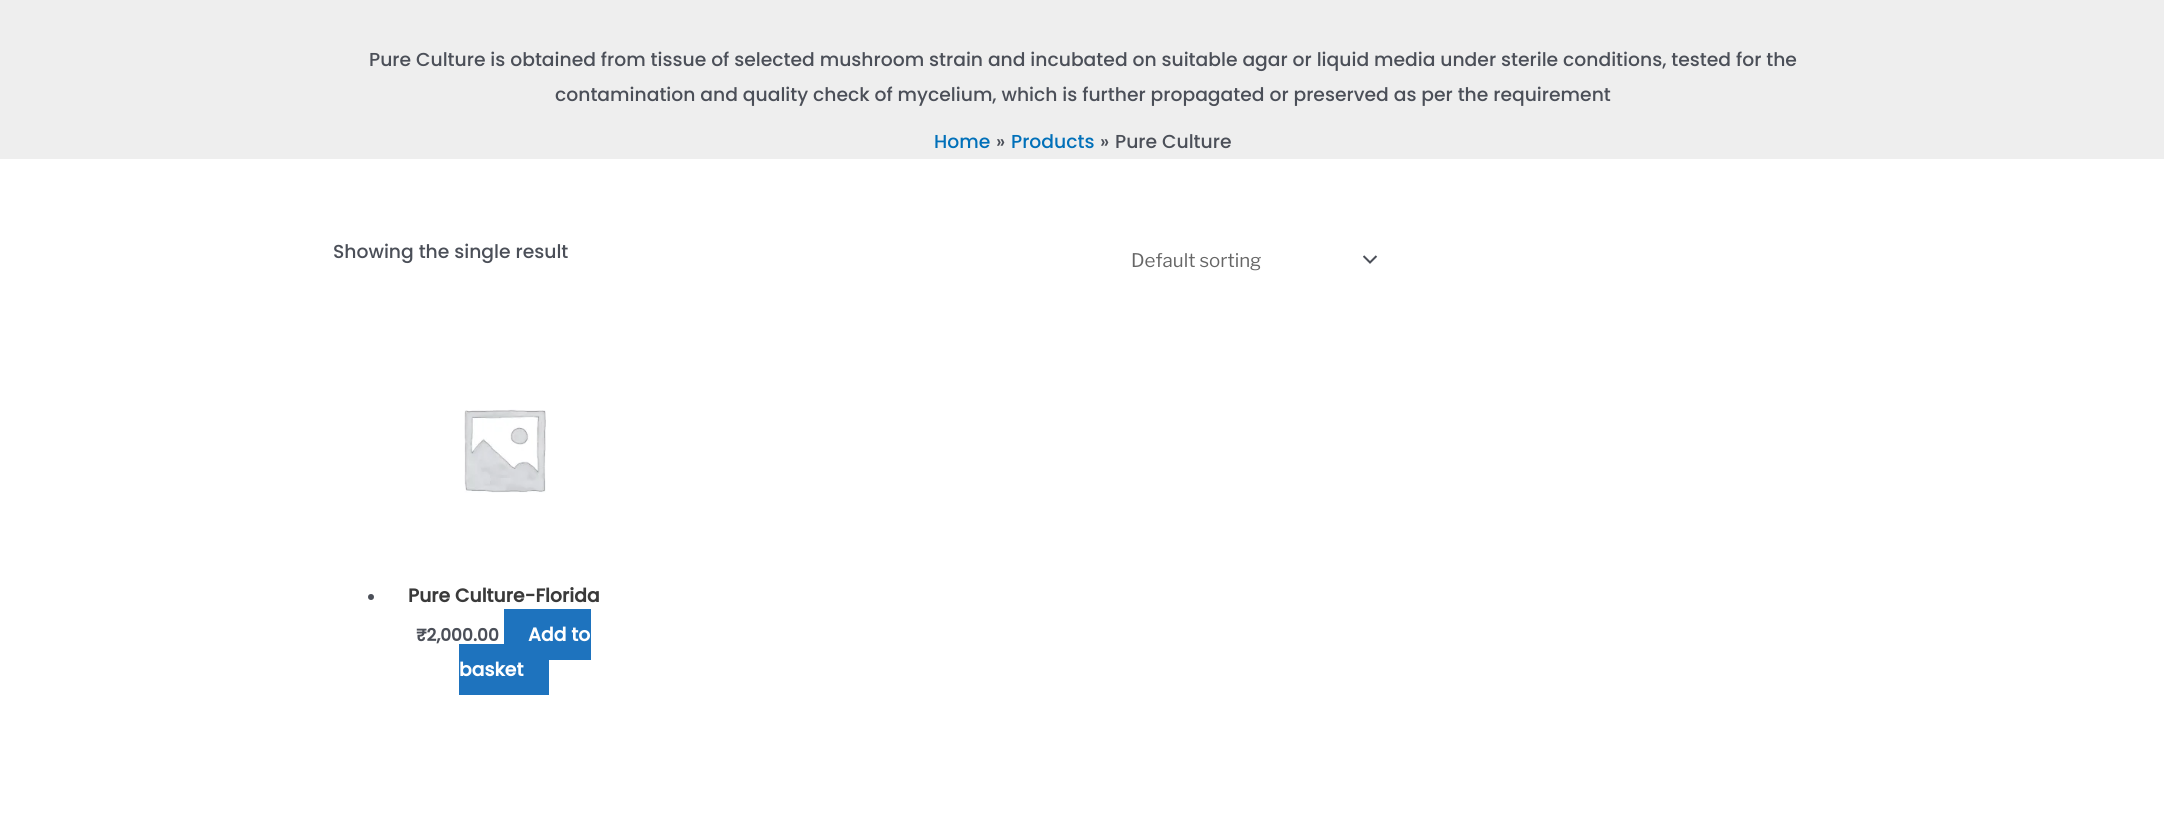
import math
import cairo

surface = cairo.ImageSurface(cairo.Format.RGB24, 2164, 820)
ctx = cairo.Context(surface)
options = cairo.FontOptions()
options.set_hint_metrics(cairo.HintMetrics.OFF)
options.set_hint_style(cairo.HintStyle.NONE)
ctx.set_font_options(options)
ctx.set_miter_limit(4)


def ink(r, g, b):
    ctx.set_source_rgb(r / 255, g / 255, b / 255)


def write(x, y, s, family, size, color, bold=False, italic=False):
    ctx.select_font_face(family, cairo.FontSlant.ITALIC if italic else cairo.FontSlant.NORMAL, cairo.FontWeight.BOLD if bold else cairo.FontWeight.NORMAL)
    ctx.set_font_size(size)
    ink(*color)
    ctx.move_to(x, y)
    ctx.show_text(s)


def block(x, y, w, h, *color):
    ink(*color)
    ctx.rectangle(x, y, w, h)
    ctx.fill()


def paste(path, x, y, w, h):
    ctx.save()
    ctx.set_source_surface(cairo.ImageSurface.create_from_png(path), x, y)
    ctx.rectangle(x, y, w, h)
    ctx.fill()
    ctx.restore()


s1 = dict(family="Poppins Medium", size=18.75, color=(75, 79, 88))
s2 = dict(family="Poppins Medium", size=18.75, color=(1, 112, 185))
s3 = dict(family="Libre Franklin Thin", size=18.75, color=(102, 102, 102))
s4 = dict(family="Poppins", size=18.75, color=(58, 58, 58), bold=True)
s5 = dict(family="Poppins", size=17, color=(75, 79, 88), bold=True)
s6 = dict(family="Poppins", size=18.75, color=(255, 255, 255), bold=True)

ink(255, 255, 255)
ctx.paint()
block(0, 0, 2164, 159, 238, 238, 238)
write(369, 66, "Pure Culture is obtained from tissue of selected mushroom strain and incubated on suitable agar or liquid media under sterile conditions, tested for the", **s1)
write(555, 101, "contamination and quality check of mycelium, which is further propagated or preserved as per the requirement", **s1)
write(934, 148, "Home", **s2)
write(996, 148, "»", **s1)
write(1011, 148, "Products", **s2)
write(1100, 148, "»", **s1)
write(1115, 148, "Pure Culture", **s1)
write(333, 258, "Showing the single result", **s1)
paste("pic1.png", 1363, 255, 15, 9)
write(1131, 267, "Default sorting", **s3)
paste("pic2.png", 464, 409, 82, 84)
ink(75, 79, 88)
ctx.arc(371, 597, 3, 0, 2 * math.pi)
ctx.fill()
write(408, 602, "Pure Culture-Florida", **s4)
write(416, 641, "₹2,000.00", **s5)
block(504, 609, 87, 51, 30, 115, 190)
write(528, 641, "Add to", **s6)
block(459, 644, 90, 51, 30, 115, 190)
write(459, 676, "basket", **s6)
surface.write_to_png("screenshot.png")
